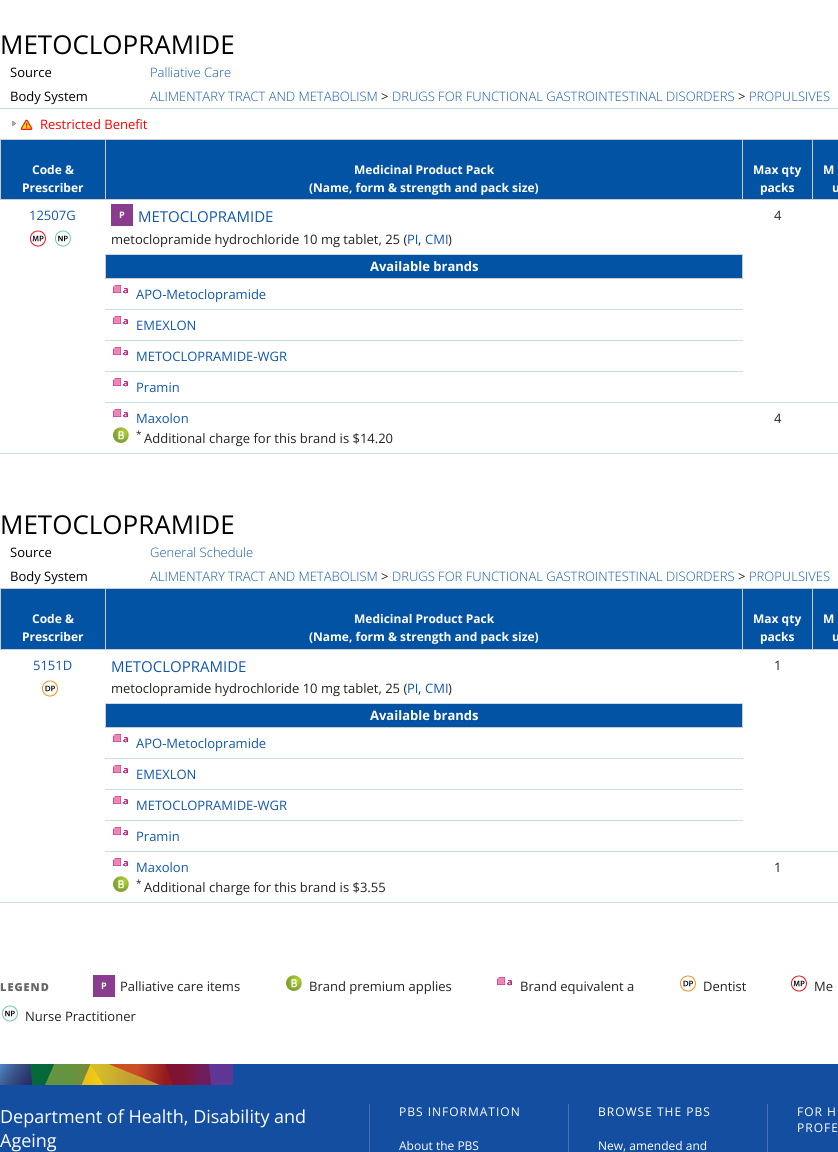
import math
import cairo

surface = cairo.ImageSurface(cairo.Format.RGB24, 838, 1152)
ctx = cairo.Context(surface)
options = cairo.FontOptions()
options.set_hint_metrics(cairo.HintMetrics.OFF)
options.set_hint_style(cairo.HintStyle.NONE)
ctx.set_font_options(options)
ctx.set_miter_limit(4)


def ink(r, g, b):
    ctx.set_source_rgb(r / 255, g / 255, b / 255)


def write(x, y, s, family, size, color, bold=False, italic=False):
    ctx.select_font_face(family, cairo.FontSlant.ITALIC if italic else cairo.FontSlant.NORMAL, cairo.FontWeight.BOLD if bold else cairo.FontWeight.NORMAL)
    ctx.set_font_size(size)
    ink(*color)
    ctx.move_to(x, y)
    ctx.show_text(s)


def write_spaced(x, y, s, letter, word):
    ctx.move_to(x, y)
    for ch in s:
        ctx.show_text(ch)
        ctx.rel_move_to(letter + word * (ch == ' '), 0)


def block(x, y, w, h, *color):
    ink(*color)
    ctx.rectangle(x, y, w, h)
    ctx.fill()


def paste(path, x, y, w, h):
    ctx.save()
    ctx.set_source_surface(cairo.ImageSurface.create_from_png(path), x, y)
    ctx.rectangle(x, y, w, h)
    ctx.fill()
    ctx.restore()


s1 = dict(family="Open Sans", size=26, color=(0, 0, 0))
s2 = dict(family="Open Sans", size=13, color=(0, 0, 0))
s3 = dict(family="Open Sans Light", size=13, color=(17, 87, 173))
s4 = dict(family="Open Sans", size=13, color=(34, 34, 34))
s5 = dict(family="Open Sans", size=13, color=(255, 0, 0))
s6 = dict(family="Open Sans", size=12, color=(255, 255, 255), bold=True)
s7 = dict(family="Open Sans", size=13, color=(17, 87, 173))
s8 = dict(family="Open Sans", size=9, color=(255, 255, 255), bold=True)
s9 = dict(family="Open Sans", size=15, color=(17, 87, 173))
s10 = dict(family="Open Sans", size=13, color=(255, 255, 255), bold=True)
s11 = dict(family="Open Sans", size=10, color=(34, 34, 34))
s12 = dict(family="Open Sans", size=18, color=(255, 255, 255))
s13 = dict(family="Open Sans", size=12, color=(255, 255, 255))

ink(255, 255, 255)
ctx.paint()
write(0, 54, "METOCLOPRAMIDE", **s1)
write(10, 77, "Source", **s2)
write(150, 77, "Palliative Care", **s3)
write(10, 101, "Body System", **s2)
write(150, 101, "ALIMENTARY TRACT AND METABOLISM", **s3)
write(381, 101, ">", **s4)
write(392, 101, "DRUGS FOR FUNCTIONAL GASTROINTESTINAL DISORDERS", **s3)
write(738, 101, ">", **s4)
write(749, 101, "PROPULSIVES", **s3)
block(0, 108, 838, 1, 196, 222, 238)
paste("pic1.png", 12, 120, 4, 7)
paste("pic2.png", 20, 119, 13, 11)
write(40, 129, "Restricted Benefit", **s5)
block(1, 140, 104, 59, 2, 83, 164)
block(812, 139, 26, 1, 204, 204, 204)
block(812, 199, 26, 1, 204, 204, 204)
block(812, 139, 1, 61, 204, 204, 204)
block(742, 139, 71, 1, 204, 204, 204)
block(742, 199, 71, 1, 204, 204, 204)
block(742, 139, 1, 61, 204, 204, 204)
block(105, 139, 638, 1, 204, 204, 204)
block(105, 199, 638, 1, 204, 204, 204)
block(105, 139, 1, 61, 204, 204, 204)
block(0, 139, 106, 1, 204, 204, 204)
block(0, 199, 106, 1, 204, 204, 204)
block(0, 139, 1, 61, 204, 204, 204)
write(32, 174, "Code &", **s6)
write(22, 192, "Prescriber", **s6)
block(106, 140, 636, 59, 2, 83, 164)
write(354, 174, "Medicinal Product Pack", **s6)
write(309, 192, "(Name, form & strength and pack size)", **s6)
block(743, 140, 69, 59, 2, 83, 164)
write(753, 174, "Max qty", **s6)
write(760, 192, "packs", **s6)
block(813, 140, 25, 59, 2, 83, 164)
write(823, 174, "M", **s6)
write(832, 192, "u", **s6)
write(29, 220, "12507G", **s7)
paste("pic3.png", 30, 230, 16, 17)
paste("pic4.png", 55, 230, 16, 17)
block(742, 254, 1, 25, 204, 204, 204)
block(105, 278, 638, 1, 204, 204, 204)
block(105, 254, 1, 25, 204, 204, 204)
block(105, 254, 638, 1, 196, 222, 238)
block(111, 204, 22, 22, 138, 60, 143)
write(119, 218, "P", **s8)
write(138, 222, "METOCLOPRAMIDE", **s9)
write(111, 244, "metoclopramide hydrochloride 10 mg tablet, 25 (", **s4)
write(407, 244, "PI", **s7)
write(418, 244, ",", **s4)
write(425, 244, "CMI", **s7)
write(448, 244, ")", **s4)
write(774, 220, "4", **s4)
block(106, 255, 636, 23, 2, 83, 164)
write(370, 271, "Available brands", **s10)
paste("pic5.png", 113, 285, 15, 9)
write(136, 299, "APO-Metoclopramide", **s7)
block(105, 309, 638, 1, 196, 222, 238)
paste("pic5.png", 113, 316, 15, 9)
write(136, 330, "EMEXLON", **s7)
block(105, 340, 638, 1, 196, 222, 238)
paste("pic5.png", 113, 347, 15, 9)
write(136, 361, "METOCLOPRAMIDE-WGR", **s7)
block(105, 371, 638, 1, 196, 222, 238)
paste("pic5.png", 113, 378, 15, 9)
write(136, 392, "Pramin", **s7)
block(105, 402, 733, 1, 196, 222, 238)
block(0, 453, 838, 1, 196, 222, 238)
paste("pic5.png", 113, 409, 15, 9)
write(136, 423, "Maxolon", **s7)
paste("pic6.png", 113, 427, 16, 16)
write(136, 438, "*", **s11)
write(144, 443, "Additional charge for this brand is $14.20", **s4)
write(774, 423, "4", **s4)
write(0, 534, "METOCLOPRAMIDE", **s1)
write(10, 557, "Source", **s2)
write(150, 557, "General Schedule", **s3)
write(10, 581, "Body System", **s2)
write(150, 581, "ALIMENTARY TRACT AND METABOLISM", **s3)
write(381, 581, ">", **s4)
write(392, 581, "DRUGS FOR FUNCTIONAL GASTROINTESTINAL DISORDERS", **s3)
write(738, 581, ">", **s4)
write(749, 581, "PROPULSIVES", **s3)
block(1, 589, 104, 60, 2, 83, 164)
block(812, 588, 26, 1, 204, 204, 204)
block(812, 649, 26, 1, 204, 204, 204)
block(812, 588, 1, 62, 204, 204, 204)
block(742, 588, 71, 1, 204, 204, 204)
block(742, 649, 71, 1, 204, 204, 204)
block(742, 588, 1, 62, 204, 204, 204)
block(105, 588, 638, 1, 204, 204, 204)
block(105, 649, 638, 1, 204, 204, 204)
block(105, 588, 1, 62, 204, 204, 204)
block(0, 588, 106, 1, 204, 204, 204)
block(0, 649, 106, 1, 204, 204, 204)
block(0, 588, 1, 62, 204, 204, 204)
write(32, 623, "Code &", **s6)
write(22, 641, "Prescriber", **s6)
block(106, 589, 636, 60, 2, 83, 164)
write(354, 623, "Medicinal Product Pack", **s6)
write(309, 641, "(Name, form & strength and pack size)", **s6)
block(743, 589, 69, 60, 2, 83, 164)
write(753, 623, "Max qty", **s6)
write(760, 641, "packs", **s6)
block(813, 589, 25, 60, 2, 83, 164)
write(823, 623, "M", **s6)
write(832, 641, "u", **s6)
write(33, 670, "5151D", **s7)
paste("pic7.png", 42, 680, 16, 17)
block(742, 703, 1, 25, 204, 204, 204)
block(105, 727, 638, 1, 204, 204, 204)
block(105, 703, 1, 25, 204, 204, 204)
block(105, 703, 638, 1, 196, 222, 238)
write(111, 672, "METOCLOPRAMIDE", **s9)
write(111, 693, "metoclopramide hydrochloride 10 mg tablet, 25 (", **s4)
write(407, 693, "PI", **s7)
write(418, 693, ",", **s4)
write(425, 693, "CMI", **s7)
write(448, 693, ")", **s4)
write(774, 670, "1", **s4)
block(106, 704, 636, 23, 2, 83, 164)
write(370, 720, "Available brands", **s10)
paste("pic5.png", 113, 734, 15, 9)
write(136, 748, "APO-Metoclopramide", **s7)
block(105, 758, 638, 1, 196, 222, 238)
paste("pic5.png", 113, 765, 15, 9)
write(136, 779, "EMEXLON", **s7)
block(105, 789, 638, 1, 196, 222, 238)
paste("pic5.png", 113, 796, 15, 9)
write(136, 810, "METOCLOPRAMIDE-WGR", **s7)
block(105, 820, 638, 1, 196, 222, 238)
paste("pic5.png", 113, 827, 15, 9)
write(136, 841, "Pramin", **s7)
block(105, 851, 733, 1, 196, 222, 238)
block(0, 902, 838, 1, 196, 222, 238)
paste("pic8.png", 113, 858, 15, 9)
write(136, 872, "Maxolon", **s7)
paste("pic6.png", 113, 876, 16, 16)
write(136, 887, "*", **s11)
write(144, 892, "Additional charge for this brand is $3.55", **s4)
write(774, 872, "1", **s4)
ctx.select_font_face("Open Sans ExtraBold")
ctx.set_font_size(11)
ink(102, 102, 102)
write_spaced(0, 991, "LEGEND", 1, 0)
block(93, 975, 22, 22, 138, 60, 143)
write(101, 989, "P", **s8)
write(120, 991, "Palliative care items", **s4)
paste("pic6.png", 286, 975, 16, 16)
write(309, 991, "Brand premium applies", **s4)
paste("pic5.png", 497, 977, 15, 9)
write(520, 991, "Brand equivalent a", **s4)
paste("pic7.png", 680, 975, 16, 17)
write(703, 991, "Dentist", **s4)
paste("pic3.png", 791, 975, 16, 17)
write(814, 991, "Me", **s4)
paste("pic4.png", 2, 1005, 16, 17)
write(25, 1021, "Nurse Practitioner", **s4)
block(0, 1064, 838, 88, 20, 78, 161)
paste("pic9.png", 0, 1064, 233, 21)
block(369, 1104, 1, 48, 67, 113, 180)
write(0, 1123, "Department of Health, Disability and", **s12)
write(0, 1147, "Ageing", **s12)
block(568, 1104, 1, 48, 67, 113, 180)
ctx.set_font_size(12)
ink(255, 255, 255)
write_spaced(399, 1116, "PBS INFORMATION", 1, 0)
write(399, 1150, "About the PBS", **s13)
block(767, 1104, 1, 48, 67, 113, 180)
ink(255, 255, 255)
write_spaced(598, 1116, "BROWSE THE PBS", 1, 0)
write(598, 1150, "New, amended and", **s13)
write_spaced(797, 1116, "FOR H", 1, 0)
write_spaced(797, 1132, "PROFE", 1, 0)
surface.write_to_png("screenshot.png")
